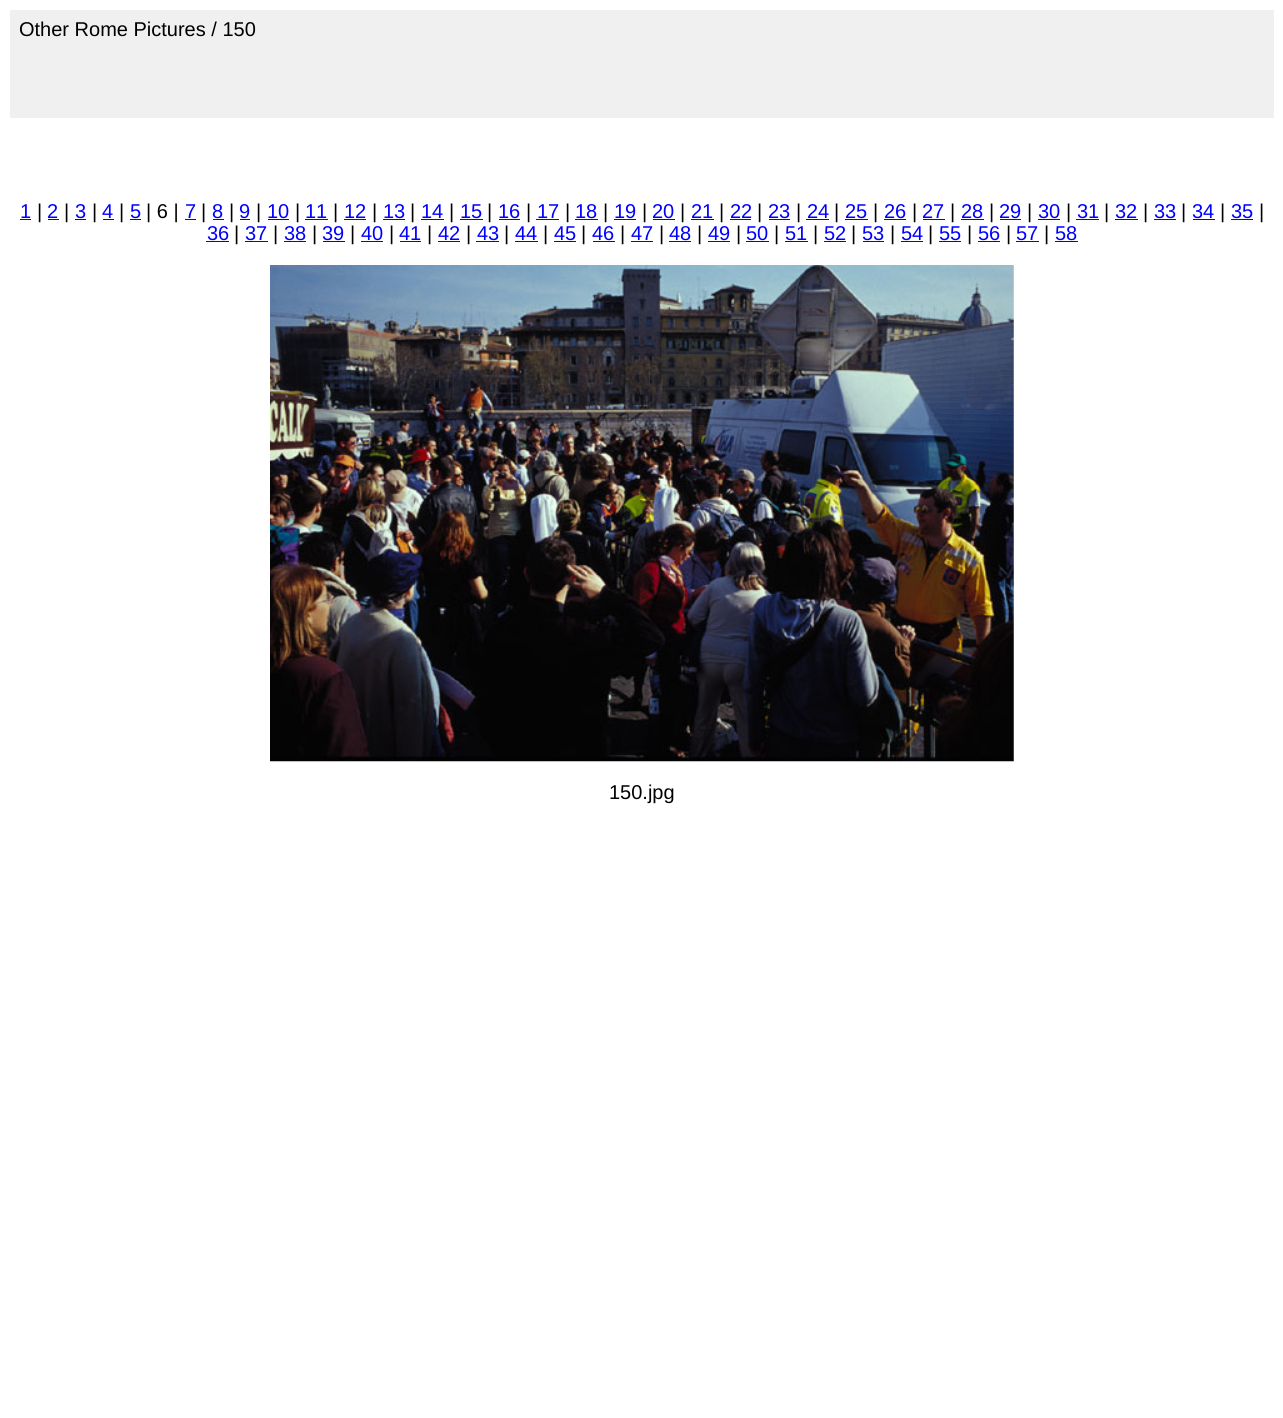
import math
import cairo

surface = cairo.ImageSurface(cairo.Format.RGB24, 1283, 1418)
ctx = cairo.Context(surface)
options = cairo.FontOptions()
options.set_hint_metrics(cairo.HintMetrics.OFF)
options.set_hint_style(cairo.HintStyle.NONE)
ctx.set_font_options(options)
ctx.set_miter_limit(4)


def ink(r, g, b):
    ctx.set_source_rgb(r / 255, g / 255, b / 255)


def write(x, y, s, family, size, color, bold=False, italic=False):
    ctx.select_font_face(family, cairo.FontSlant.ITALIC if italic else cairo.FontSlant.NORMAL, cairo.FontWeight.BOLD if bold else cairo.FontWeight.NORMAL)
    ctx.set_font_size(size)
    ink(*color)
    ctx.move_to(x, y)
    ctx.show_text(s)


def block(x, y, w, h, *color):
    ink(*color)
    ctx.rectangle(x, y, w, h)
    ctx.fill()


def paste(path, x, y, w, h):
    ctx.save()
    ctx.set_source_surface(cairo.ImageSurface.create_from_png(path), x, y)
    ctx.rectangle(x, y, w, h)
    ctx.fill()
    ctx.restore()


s1 = dict(family="Liberation Sans", size=20, color=(0, 0, 0))
s2 = dict(family="Liberation Sans", size=20, color=(0, 0, 255))

ink(255, 255, 255)
ctx.paint()
block(10, 10, 1264, 108, 240, 240, 240)
write(19, 36, "Other Rome Pictures / 150", **s1)
write(20, 218, "1", **s2)
block(20, 219, 11, 1, 0, 0, 255)
write(37, 218, "|", **s1)
write(47, 218, "2", **s2)
block(48, 219, 11, 1, 0, 0, 255)
write(64, 218, "|", **s1)
write(75, 218, "3", **s2)
block(75, 219, 11, 1, 0, 0, 255)
write(92, 218, "|", **s1)
write(102, 218, "4", **s2)
block(103, 219, 11, 1, 0, 0, 255)
write(119, 218, "|", **s1)
write(130, 218, "5", **s2)
block(130, 219, 11, 1, 0, 0, 255)
write(146, 218, "| 6 |", **s1)
write(185, 218, "7", **s2)
block(185, 219, 11, 1, 0, 0, 255)
write(201, 218, "|", **s1)
write(212, 218, "8", **s2)
block(213, 219, 11, 1, 0, 0, 255)
write(229, 218, "|", **s1)
write(239, 218, "9", **s2)
block(240, 219, 10, 1, 0, 0, 255)
write(256, 218, "|", **s1)
write(267, 218, "10", **s2)
block(268, 219, 21, 1, 0, 0, 255)
write(295, 218, "|", **s1)
write(305, 218, "11", **s2)
block(305, 219, 23, 1, 0, 0, 255)
write(333, 218, "|", **s1)
write(344, 218, "12", **s2)
block(344, 219, 22, 1, 0, 0, 255)
write(372, 218, "|", **s1)
write(383, 218, "13", **s2)
block(383, 219, 22, 1, 0, 0, 255)
write(410, 218, "|", **s1)
write(421, 218, "14", **s2)
block(421, 219, 23, 1, 0, 0, 255)
write(449, 218, "|", **s1)
write(460, 218, "15", **s2)
block(460, 219, 23, 1, 0, 0, 255)
write(487, 218, "|", **s1)
write(498, 218, "16", **s2)
block(499, 219, 21, 1, 0, 0, 255)
write(526, 218, "|", **s1)
write(537, 218, "17", **s2)
block(536, 219, 23, 1, 0, 0, 255)
write(565, 218, "|", **s1)
write(575, 218, "18", **s2)
block(575, 219, 23, 1, 0, 0, 255)
write(603, 218, "|", **s1)
write(614, 218, "19", **s2)
block(614, 219, 22, 1, 0, 0, 255)
write(642, 218, "|", **s1)
write(652, 218, "20", **s2)
block(653, 219, 22, 1, 0, 0, 255)
write(680, 218, "|", **s1)
write(691, 218, "21", **s2)
block(691, 219, 23, 1, 0, 0, 255)
write(719, 218, "|", **s1)
write(730, 218, "22", **s2)
block(730, 219, 21, 1, 0, 0, 255)
write(757, 218, "|", **s1)
write(768, 218, "23", **s2)
block(769, 219, 21, 1, 0, 0, 255)
write(796, 218, "|", **s1)
write(807, 218, "24", **s2)
block(806, 219, 23, 1, 0, 0, 255)
write(834, 218, "|", **s1)
write(845, 218, "25", **s2)
block(845, 219, 23, 1, 0, 0, 255)
write(873, 218, "|", **s1)
write(884, 218, "26", **s2)
block(884, 219, 22, 1, 0, 0, 255)
write(912, 218, "|", **s1)
write(922, 218, "27", **s2)
block(923, 219, 22, 1, 0, 0, 255)
write(950, 218, "|", **s1)
write(961, 218, "28", **s2)
block(961, 219, 23, 1, 0, 0, 255)
write(989, 218, "|", **s1)
write(999, 218, "29", **s2)
block(1000, 219, 21, 1, 0, 0, 255)
write(1027, 218, "|", **s1)
write(1038, 218, "30", **s2)
block(1038, 219, 22, 1, 0, 0, 255)
write(1066, 218, "|", **s1)
write(1077, 218, "31", **s2)
block(1076, 219, 23, 1, 0, 0, 255)
write(1104, 218, "|", **s1)
write(1115, 218, "32", **s2)
block(1115, 219, 23, 1, 0, 0, 255)
write(1143, 218, "|", **s1)
write(1154, 218, "33", **s2)
block(1154, 219, 22, 1, 0, 0, 255)
write(1181, 218, "|", **s1)
write(1192, 218, "34", **s2)
block(1193, 219, 22, 1, 0, 0, 255)
write(1220, 218, "|", **s1)
write(1231, 218, "35", **s2)
block(1231, 219, 22, 1, 0, 0, 255)
write(1259, 218, "|", **s1)
write(207, 240, "36", **s2)
block(206, 241, 23, 1, 0, 0, 255)
write(234, 240, "|", **s1)
write(245, 240, "37", **s2)
block(245, 241, 23, 1, 0, 0, 255)
write(273, 240, "|", **s1)
write(284, 240, "38", **s2)
block(284, 241, 22, 1, 0, 0, 255)
write(312, 240, "|", **s1)
write(322, 240, "39", **s2)
block(323, 241, 22, 1, 0, 0, 255)
write(350, 240, "|", **s1)
write(361, 240, "40", **s2)
block(361, 241, 22, 1, 0, 0, 255)
write(389, 240, "|", **s1)
write(399, 240, "41", **s2)
block(400, 241, 21, 1, 0, 0, 255)
write(427, 240, "|", **s1)
write(438, 240, "42", **s2)
block(438, 241, 22, 1, 0, 0, 255)
write(466, 240, "|", **s1)
write(477, 240, "43", **s2)
block(476, 241, 23, 1, 0, 0, 255)
write(504, 240, "|", **s1)
write(515, 240, "44", **s2)
block(515, 241, 23, 1, 0, 0, 255)
write(543, 240, "|", **s1)
write(554, 240, "45", **s2)
block(554, 241, 22, 1, 0, 0, 255)
write(581, 240, "|", **s1)
write(592, 240, "46", **s2)
block(593, 241, 22, 1, 0, 0, 255)
write(620, 240, "|", **s1)
write(631, 240, "47", **s2)
block(631, 241, 22, 1, 0, 0, 255)
write(659, 240, "|", **s1)
write(669, 240, "48", **s2)
block(669, 241, 22, 1, 0, 0, 255)
write(697, 240, "|", **s1)
write(708, 240, "49", **s2)
block(708, 241, 22, 1, 0, 0, 255)
write(736, 240, "|", **s1)
write(746, 240, "50", **s2)
block(746, 241, 23, 1, 0, 0, 255)
write(774, 240, "|", **s1)
write(785, 240, "51", **s2)
block(785, 241, 23, 1, 0, 0, 255)
write(813, 240, "|", **s1)
write(824, 240, "52", **s2)
block(824, 241, 22, 1, 0, 0, 255)
write(851, 240, "|", **s1)
write(862, 240, "53", **s2)
block(863, 241, 21, 1, 0, 0, 255)
write(890, 240, "|", **s1)
write(901, 240, "54", **s2)
block(901, 241, 22, 1, 0, 0, 255)
write(928, 240, "|", **s1)
write(939, 240, "55", **s2)
block(939, 241, 22, 1, 0, 0, 255)
write(967, 240, "|", **s1)
write(978, 240, "56", **s2)
block(978, 241, 22, 1, 0, 0, 255)
write(1006, 240, "|", **s1)
write(1016, 240, "57", **s2)
block(1016, 241, 23, 1, 0, 0, 255)
write(1044, 240, "|", **s1)
write(1055, 240, "58", **s2)
block(1055, 241, 23, 1, 0, 0, 255)
paste("pic1.png", 270, 265, 744, 497)
write(609, 799, "150.jpg", **s1)
surface.write_to_png("screenshot.png")
